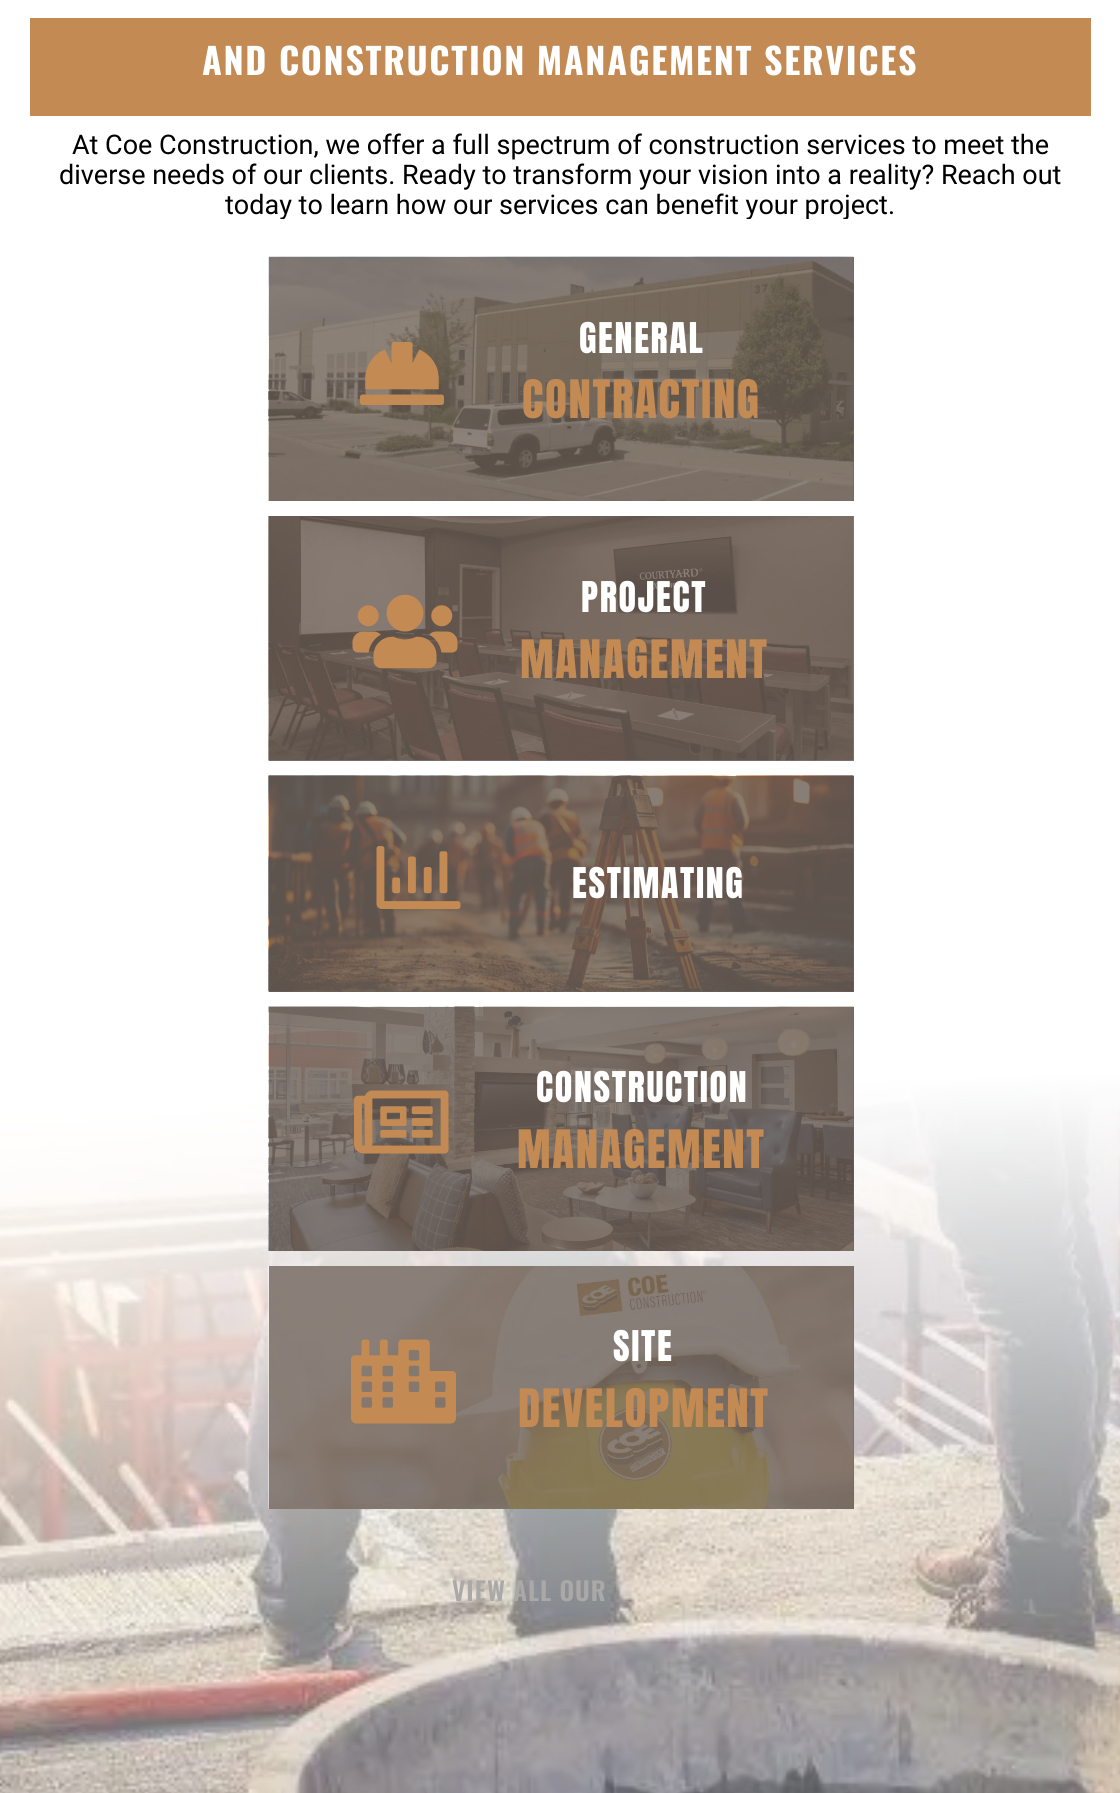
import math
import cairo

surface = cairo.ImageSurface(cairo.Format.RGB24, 1120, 1793)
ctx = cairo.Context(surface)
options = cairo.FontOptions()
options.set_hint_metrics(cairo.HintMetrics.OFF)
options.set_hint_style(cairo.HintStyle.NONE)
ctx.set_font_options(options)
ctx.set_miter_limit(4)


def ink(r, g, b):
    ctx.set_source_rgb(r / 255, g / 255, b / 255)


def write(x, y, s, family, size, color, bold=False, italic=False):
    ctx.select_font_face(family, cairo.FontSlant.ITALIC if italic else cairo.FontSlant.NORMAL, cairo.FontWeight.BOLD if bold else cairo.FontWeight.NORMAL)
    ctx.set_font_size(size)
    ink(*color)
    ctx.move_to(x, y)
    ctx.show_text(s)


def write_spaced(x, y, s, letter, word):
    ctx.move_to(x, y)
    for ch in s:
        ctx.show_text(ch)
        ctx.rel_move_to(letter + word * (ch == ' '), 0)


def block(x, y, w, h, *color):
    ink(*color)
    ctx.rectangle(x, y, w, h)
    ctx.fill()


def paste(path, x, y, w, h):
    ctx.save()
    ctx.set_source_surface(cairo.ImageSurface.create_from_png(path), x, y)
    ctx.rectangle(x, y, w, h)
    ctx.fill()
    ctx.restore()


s1 = dict(family="Roboto", size=27, color=(0, 0, 0))

ink(255, 255, 255)
ctx.paint()
paste("pic1.png", 0, 0, 1120, 1793)
block(30, 18, 1061, 98, 195, 138, 83)
ctx.select_font_face("Oswald", cairo.FontSlant.NORMAL, cairo.FontWeight.BOLD)
ctx.set_font_size(36)
ink(255, 255, 255)
write_spaced(202, 75, "AND CONSTRUCTION MANAGEMENT SERVICES", 1.65, 0)
write(72, 154, "At Coe Construction, we offer a full spectrum of construction services to meet the", **s1)
write(59, 184, "diverse needs of our clients. Ready to transform your vision into a reality? Reach out", **s1)
ctx.save()
ctx.rectangle(30, 0, 1061, 219)
ctx.clip()
write(225, 214, "today to learn how our services can benefit your project.", **s1)
ctx.restore()
block(853, 257, 1, 244, 111, 99, 90)
paste("pic2.png", 268, 256, 586, 245)
ctx.set_source_rgba(0.435, 0.388, 0.353, 0.8)
ctx.rectangle(269, 257, 585, 244)
ctx.fill()
paste("pic3.png", 360, 342, 84, 63)
ctx.select_font_face("Anton")
ctx.set_font_size(36)
ink(255, 255, 255)
write_spaced(579, 353, "GENERAL", 1.65, 0)
ctx.set_font_size(45)
ink(195, 138, 83)
write_spaced(522, 418, "CONTRACTING", 1.65, 0)
paste("pic4.png", 268, 516, 586, 245)
ctx.set_source_rgba(0.435, 0.388, 0.353, 0.8)
ctx.rectangle(269, 516, 585, 245)
ctx.fill()
paste("pic5.png", 352, 594, 106, 75)
ctx.set_font_size(36)
ink(255, 255, 255)
write_spaced(581, 612, "PROJECT", 1.65, 0)
ctx.set_font_size(45)
ink(195, 138, 83)
write_spaced(520, 678, "MANAGEMENT", 1.65, 0)
block(269, 776, 585, 216, 111, 99, 90)
paste("pic6.png", 268, 775, 586, 217)
ctx.set_source_rgba(0.435, 0.388, 0.353, 0.82)
ctx.rectangle(269, 776, 585, 216)
ctx.fill()
paste("pic7.png", 376, 846, 85, 63)
ctx.set_font_size(36)
ink(255, 255, 255)
write_spaced(572, 898, "ESTIMATING", 1.65, 0)
block(853, 1007, 1, 244, 111, 99, 90)
paste("pic8.png", 268, 1006, 586, 245)
ctx.set_source_rgba(0.435, 0.388, 0.353, 0.82)
ctx.rectangle(269, 1007, 585, 244)
ctx.fill()
paste("pic9.png", 354, 1090, 95, 64)
ink(255, 255, 255)
write_spaced(536, 1102, "CONSTRUCTION", 1.65, 0)
ctx.set_font_size(45)
ink(195, 138, 83)
write_spaced(517, 1168, "MANAGEMENT", 1.65, 0)
block(853, 1266, 1, 243, 111, 99, 90)
paste("pic10.png", 268, 1266, 586, 243)
ctx.set_source_rgba(0.435, 0.388, 0.353, 0.82)
ctx.rectangle(269, 1266, 585, 243)
ctx.fill()
paste("pic11.png", 351, 1339, 105, 85)
ctx.set_font_size(36)
ink(255, 255, 255)
write_spaced(613, 1361, "SITE", 1.65, 0)
ctx.set_font_size(45)
ink(195, 138, 83)
write_spaced(518, 1427, "DEVELOPMENT", 1.65, 0)
ctx.select_font_face("Oswald SemiBold")
ctx.set_font_size(25.5)
ink(171, 169, 167)
write_spaced(452, 1601, "VIEW ALL OUR", 1, 0)
surface.write_to_png("screenshot.png")
